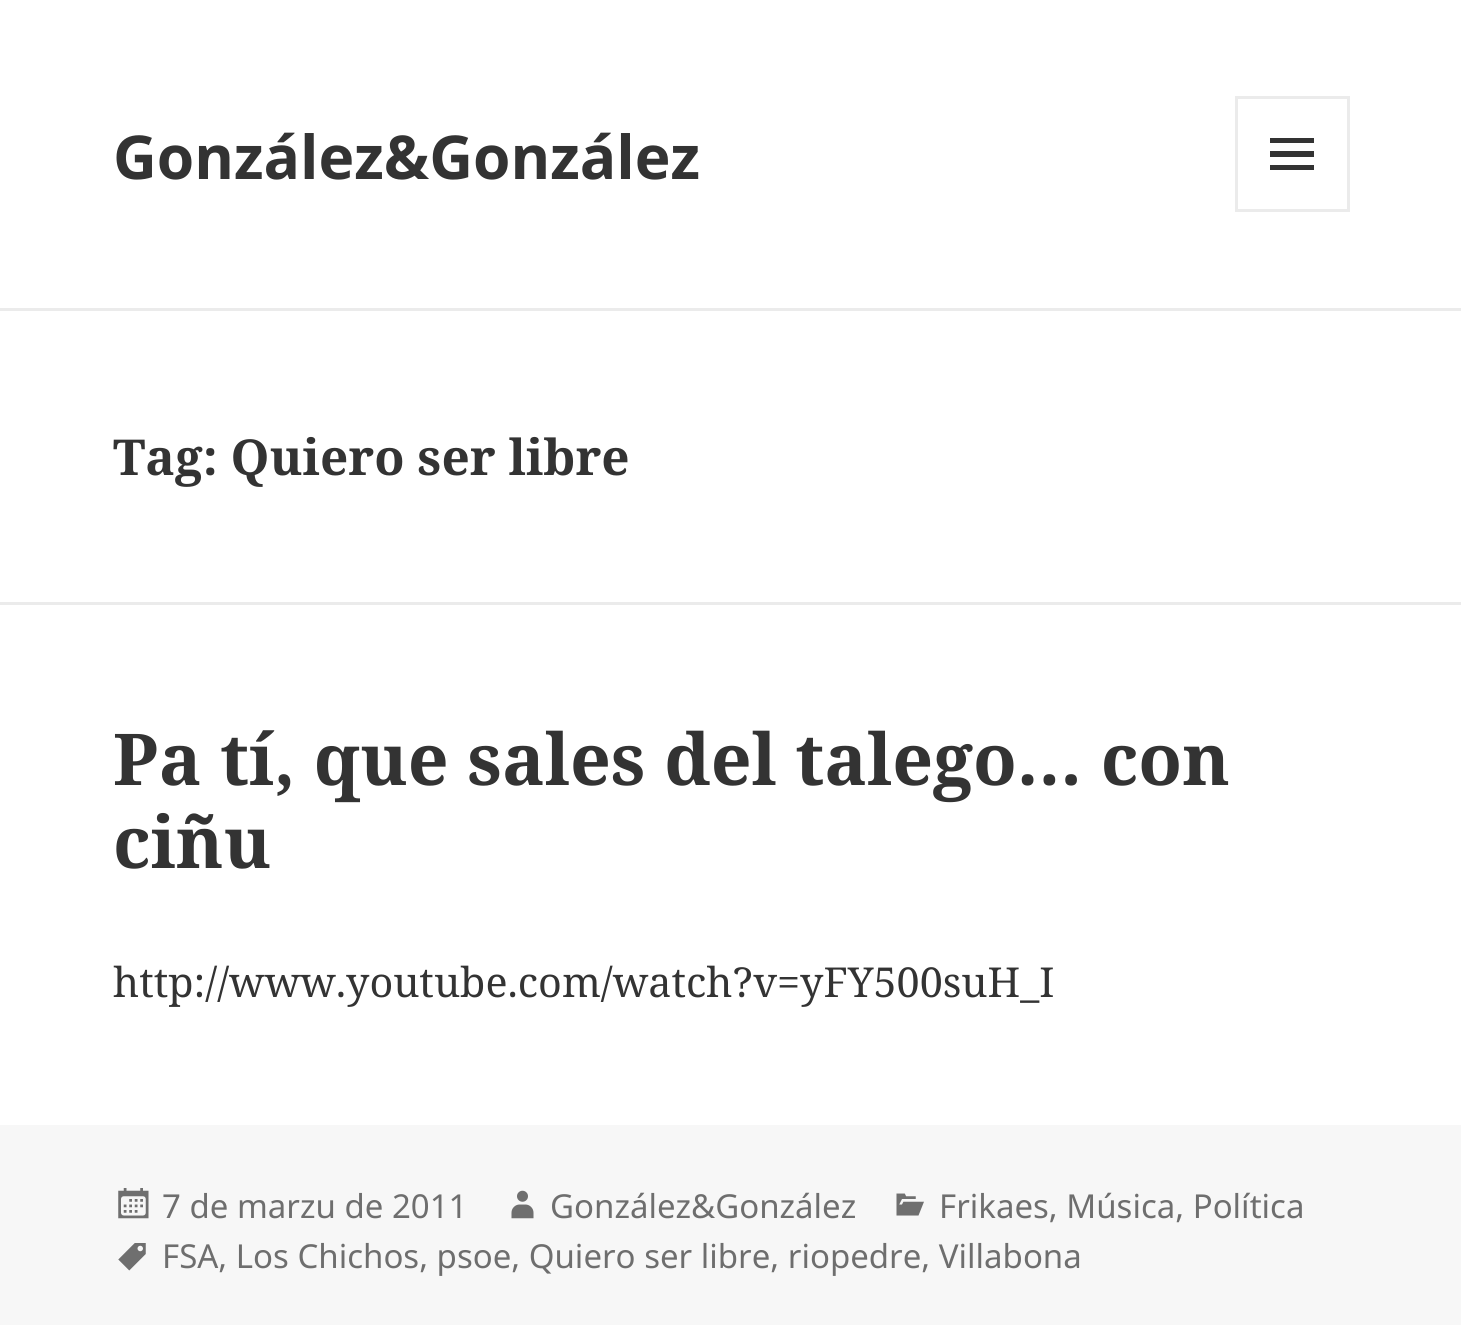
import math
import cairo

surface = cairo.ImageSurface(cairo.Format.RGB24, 1461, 1325)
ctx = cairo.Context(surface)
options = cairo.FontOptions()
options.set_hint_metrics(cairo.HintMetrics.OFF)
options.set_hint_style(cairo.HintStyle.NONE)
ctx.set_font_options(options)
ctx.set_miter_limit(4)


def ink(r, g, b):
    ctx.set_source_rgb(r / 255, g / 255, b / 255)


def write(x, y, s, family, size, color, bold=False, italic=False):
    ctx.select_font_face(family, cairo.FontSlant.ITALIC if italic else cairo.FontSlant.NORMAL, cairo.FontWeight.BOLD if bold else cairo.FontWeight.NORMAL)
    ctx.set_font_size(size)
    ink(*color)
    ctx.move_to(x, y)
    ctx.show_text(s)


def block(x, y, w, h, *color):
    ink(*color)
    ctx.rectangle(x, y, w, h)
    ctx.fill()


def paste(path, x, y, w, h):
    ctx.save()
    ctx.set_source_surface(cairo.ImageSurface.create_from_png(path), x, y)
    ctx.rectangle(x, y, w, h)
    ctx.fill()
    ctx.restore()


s1 = dict(family="Noto Sans", size=60.5, color=(51, 51, 51), bold=True)
s2 = dict(family="Noto Serif", size=49.5, color=(51, 51, 51), bold=True)
s3 = dict(family="Noto Serif", size=71.5, color=(51, 51, 51), bold=True)
s4 = dict(family="Noto Serif", size=41.25, color=(51, 51, 51))
s5 = dict(family="Noto Sans", size=33, color=(110, 110, 110))

ink(255, 255, 255)
ctx.paint()
block(0, 308, 1461, 3, 235, 235, 235)
write(113, 179, "González&González", **s1)
ctx.rectangle(1236.5, 97.5, 112, 113)
ink(235, 235, 235)
ctx.set_line_width(3)
ctx.stroke()
ink(51, 51, 51)
ctx.new_path()
ctx.move_to(1270, 170)
ctx.line_to(1270, 165)
ctx.line_to(1314, 165)
ctx.line_to(1314, 170)
ctx.close_path()
ctx.move_to(1270, 138)
ctx.line_to(1314, 138)
ctx.line_to(1314, 143)
ctx.line_to(1270, 143)
ctx.close_path()
ctx.move_to(1270, 157)
ctx.line_to(1270, 151)
ctx.line_to(1314, 151)
ctx.line_to(1314, 157)
ctx.close_path()
ctx.fill()
block(0, 602, 1461, 3, 235, 235, 235)
write(113, 475, "Tag: Quiero ser libre", **s2)
write(113, 785, "Pa tí, que sales del talego… con", **s3)
write(113, 868, "ciñu", **s3)
write(113, 997, "http://www.youtube.com/watch?v=yFY500suH_I", **s4)
block(0, 1125, 1461, 200, 247, 247, 247)
paste("pic1.png", 118, 1188, 31, 31)
write(162, 1218, "7 de marzu de 2011", **s5)
paste("pic2.png", 511, 1190, 23, 29)
write(550, 1218, "González&González", **s5)
paste("pic3.png", 896, 1193, 28, 23)
write(939, 1218, "Frikaes, Música, Política", **s5)
paste("pic4.png", 118, 1243, 28, 28)
write(162, 1268, "FSA, Los Chichos, psoe, Quiero ser libre, riopedre, Villabona", **s5)
surface.write_to_png("screenshot.png")
